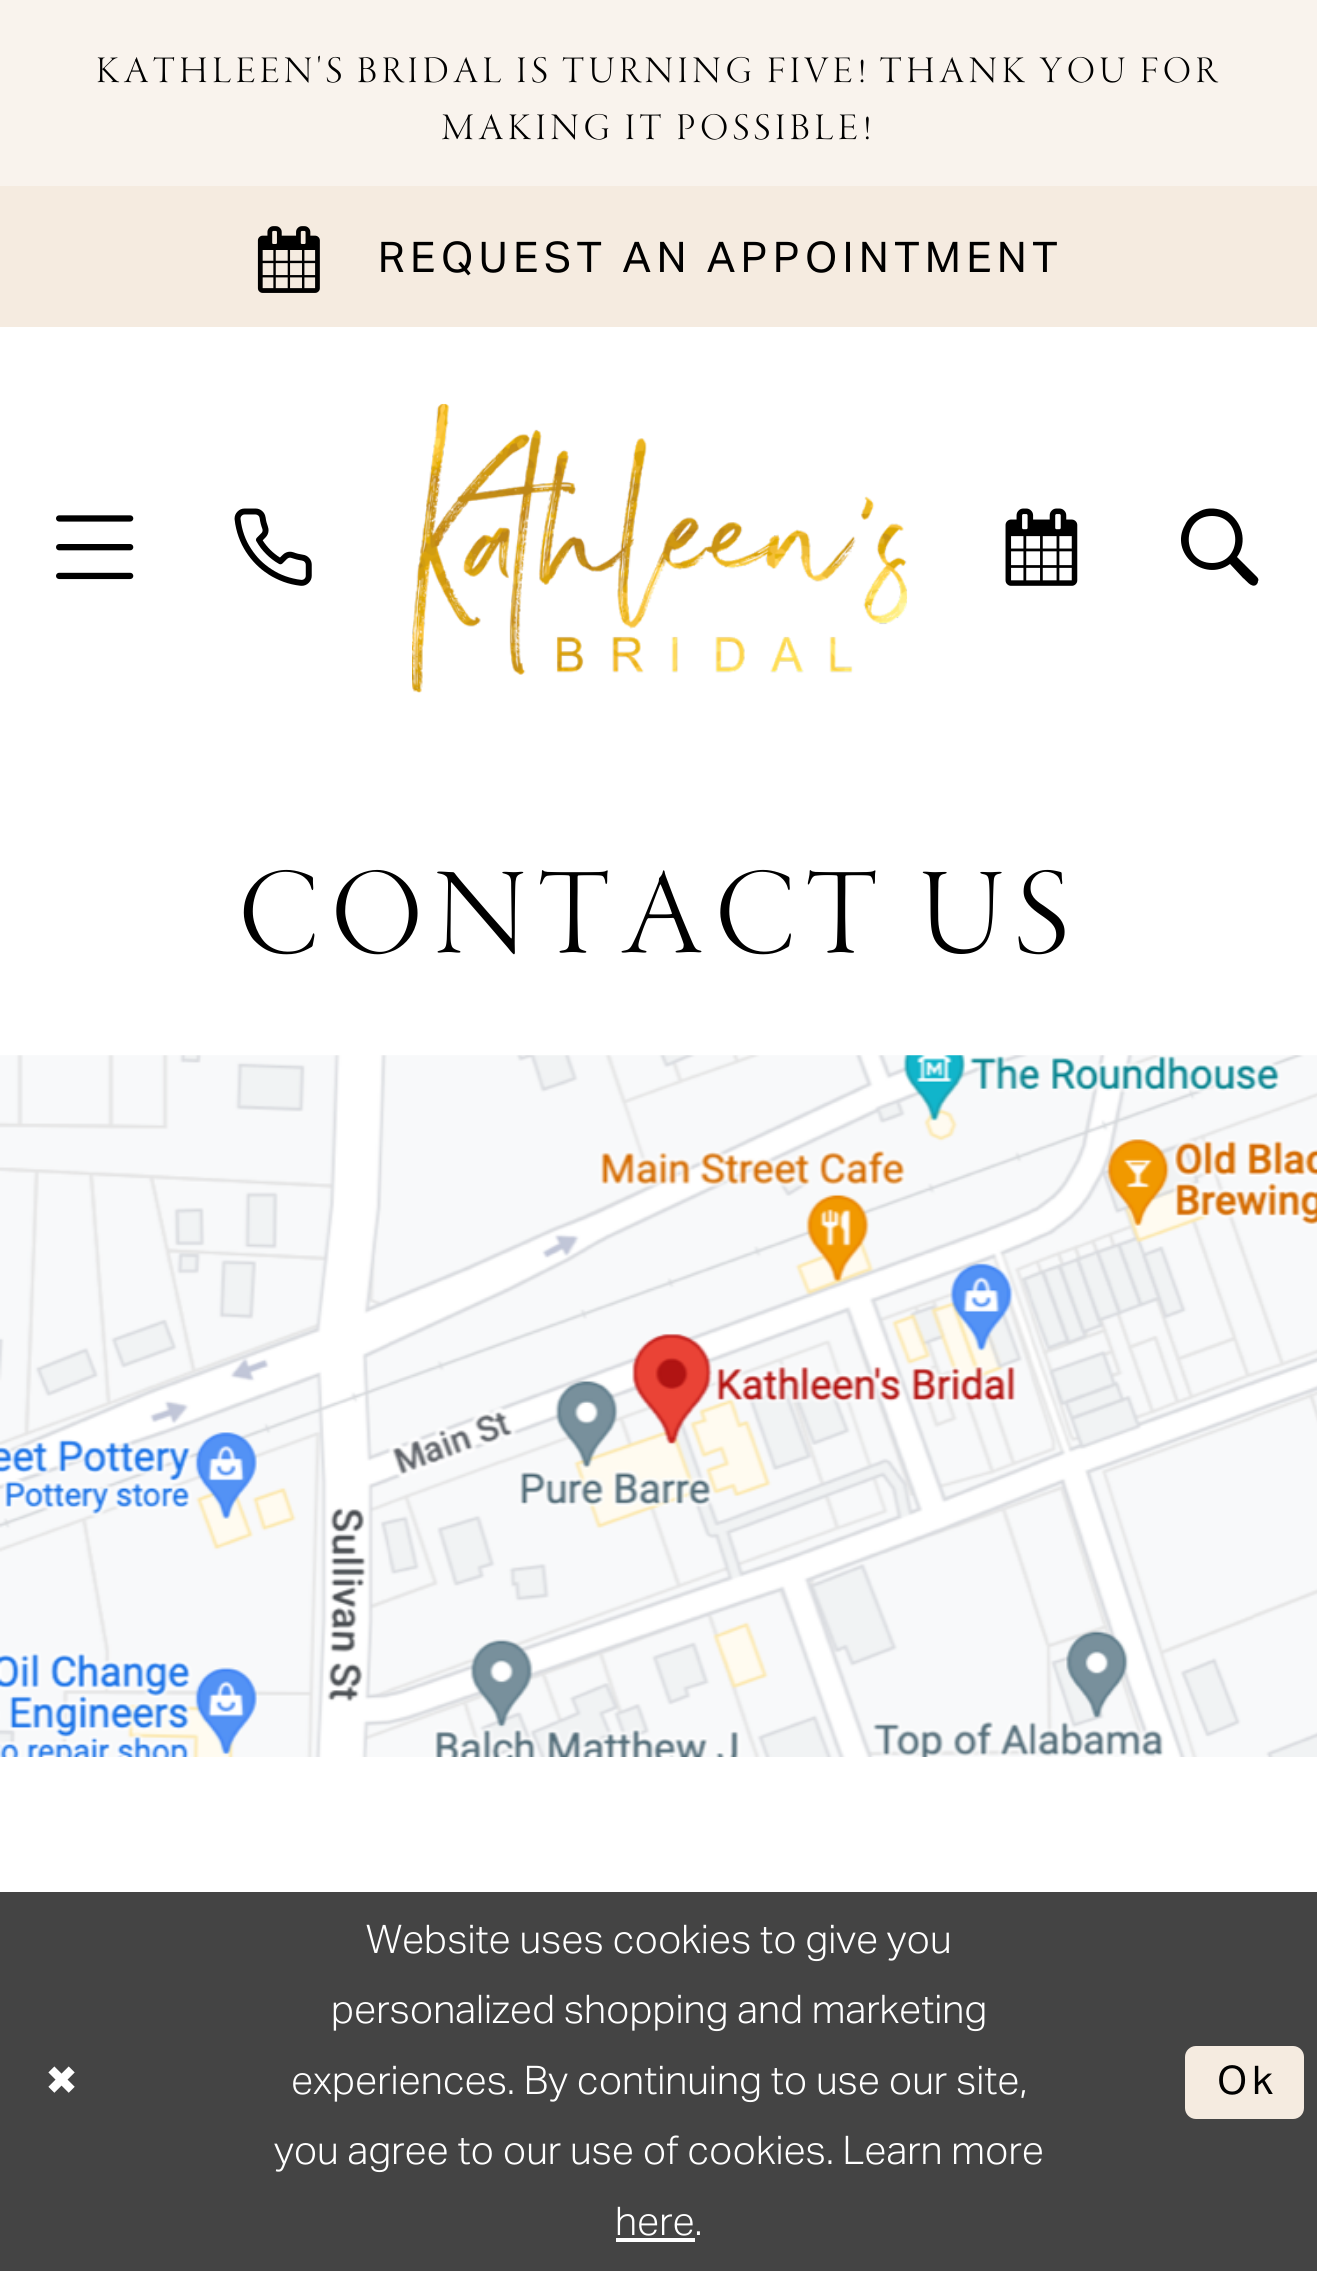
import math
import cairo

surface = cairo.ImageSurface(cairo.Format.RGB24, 1317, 2271)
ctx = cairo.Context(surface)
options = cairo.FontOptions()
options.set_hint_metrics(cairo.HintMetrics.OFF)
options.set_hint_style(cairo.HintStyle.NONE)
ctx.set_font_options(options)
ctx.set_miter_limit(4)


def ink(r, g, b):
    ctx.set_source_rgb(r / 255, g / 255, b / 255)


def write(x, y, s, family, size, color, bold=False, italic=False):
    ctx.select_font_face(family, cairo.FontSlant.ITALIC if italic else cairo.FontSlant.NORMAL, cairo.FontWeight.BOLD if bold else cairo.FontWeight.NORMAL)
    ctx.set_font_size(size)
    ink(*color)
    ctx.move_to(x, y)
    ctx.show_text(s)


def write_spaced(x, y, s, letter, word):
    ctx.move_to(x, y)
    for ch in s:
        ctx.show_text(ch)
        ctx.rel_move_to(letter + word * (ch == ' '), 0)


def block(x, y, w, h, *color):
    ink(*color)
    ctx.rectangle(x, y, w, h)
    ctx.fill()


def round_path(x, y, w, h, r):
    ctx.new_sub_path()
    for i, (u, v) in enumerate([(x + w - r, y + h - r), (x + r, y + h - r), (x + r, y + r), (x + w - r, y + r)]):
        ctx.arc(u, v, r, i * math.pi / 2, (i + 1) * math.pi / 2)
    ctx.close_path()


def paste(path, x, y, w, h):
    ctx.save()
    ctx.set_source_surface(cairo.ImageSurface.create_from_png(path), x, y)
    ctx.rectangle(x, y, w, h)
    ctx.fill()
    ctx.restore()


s1 = dict(family="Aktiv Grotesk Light", size=39.5, color=(255, 255, 255))

ink(255, 255, 255)
ctx.paint()
block(0, 0, 1317, 186, 249, 243, 237)
ctx.select_font_face("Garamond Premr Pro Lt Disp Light")
ctx.set_font_size(38.65)
ink(0, 0, 0)
write_spaced(96, 82, "KATHLEEN'S BRIDAL IS TURNING FIVE! THANK YOU FOR", 4.45, 0)
write_spaced(442, 139, "MAKING IT POSSIBLE!", 4.45, 0)
block(0, 186, 1317, 141, 245, 235, 224)
paste("pic1.png", 257, 226, 63, 67)
ctx.select_font_face("Aktiv Grotesk")
ctx.set_font_size(42.2)
ink(0, 0, 0)
write_spaced(378, 272, "REQUEST AN APPOINTMENT", 5.6, 0)
paste("pic2.png", 56, 515, 78, 65)
paste("pic3.png", 234, 508, 78, 78)
paste("pic4.png", 412, 403, 496, 290)
paste("pic5.png", 1005, 508, 73, 78)
ctx.new_path()
ctx.move_to(1257, 577)
ctx.line_to(1237, 557)
ctx.curve_to(1248, 542, 1242, 521, 1227, 512)
ctx.curve_to(1218, 508, 1208, 507, 1200, 511)
ctx.curve_to(1194, 514, 1188, 518, 1185, 525)
ctx.curve_to(1169, 553, 1204, 583, 1230, 564)
ctx.line_to(1243, 578)
ctx.curve_to(1246, 580, 1251, 588, 1256, 585)
ctx.curve_to(1257, 584, 1258, 583, 1258, 581)
ctx.curve_to(1259, 580, 1258, 578, 1257, 577)
ctx.close_path()
ctx.move_to(1212, 563)
ctx.curve_to(1181, 563, 1181, 516, 1212, 516)
ctx.curve_to(1243, 516, 1243, 563, 1212, 563)
ctx.close_path()
ctx.fill()
ctx.select_font_face("Garamond Premr Pro Lt Disp Light")
ctx.set_font_size(126.5)
write_spaced(238, 952, "CONTACT US", 11.25, 0)
paste("pic6.png", 0, 1055, 1317, 702)
block(0, 1892, 1317, 379, 68, 68, 68)
ctx.select_font_face("DejaVu Sans")
ctx.set_font_size(39.5)
ink(255, 255, 255)
write_spaced(45, 2094, "✖", 5, 0)
write(366, 1953, "Website uses cookies to give you", **s1)
write(331, 2023, "personalized shopping and marketing", **s1)
write(291, 2094, "experiences. By continuing to use our site,", **s1)
write(274, 2164, "you agree to our use of cookies. Learn more", **s1)
write(615, 2235, "here.", **s1)
block(616, 2238, 79, 4, 255, 255, 255)
ink(245, 235, 224)
round_path(1185, 2046, 119, 73, 11)
ctx.fill()
ctx.select_font_face("Aktiv Grotesk")
ink(0, 0, 0)
write_spaced(1217, 2094, "Ok", 5, 0)
surface.write_to_png("screenshot.png")
